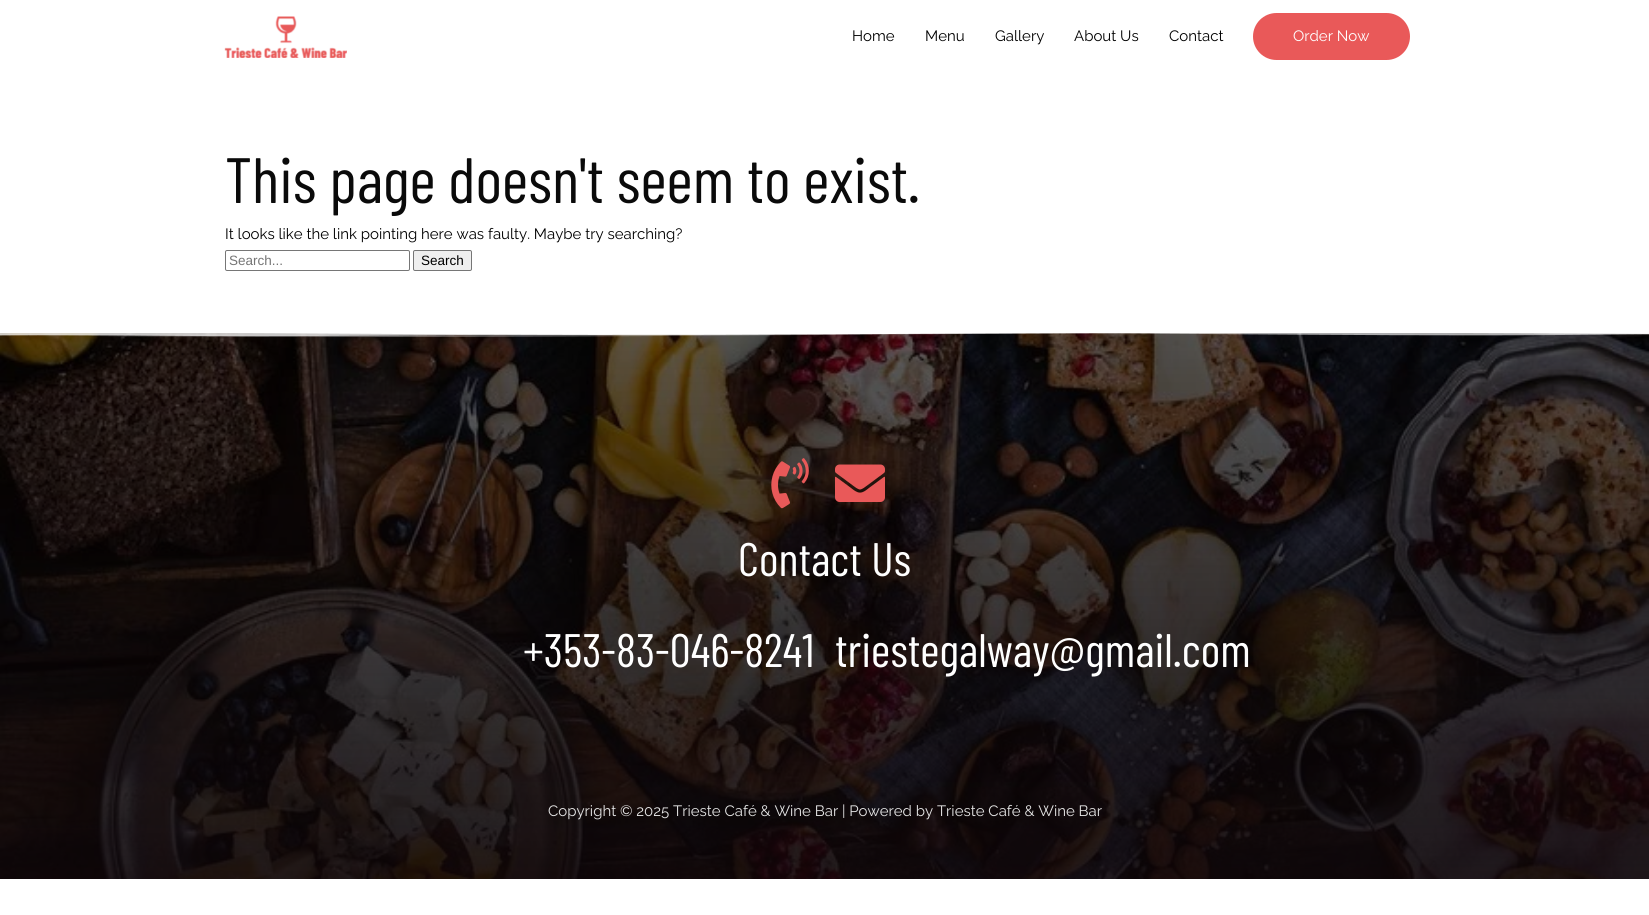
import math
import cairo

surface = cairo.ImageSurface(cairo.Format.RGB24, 1649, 915)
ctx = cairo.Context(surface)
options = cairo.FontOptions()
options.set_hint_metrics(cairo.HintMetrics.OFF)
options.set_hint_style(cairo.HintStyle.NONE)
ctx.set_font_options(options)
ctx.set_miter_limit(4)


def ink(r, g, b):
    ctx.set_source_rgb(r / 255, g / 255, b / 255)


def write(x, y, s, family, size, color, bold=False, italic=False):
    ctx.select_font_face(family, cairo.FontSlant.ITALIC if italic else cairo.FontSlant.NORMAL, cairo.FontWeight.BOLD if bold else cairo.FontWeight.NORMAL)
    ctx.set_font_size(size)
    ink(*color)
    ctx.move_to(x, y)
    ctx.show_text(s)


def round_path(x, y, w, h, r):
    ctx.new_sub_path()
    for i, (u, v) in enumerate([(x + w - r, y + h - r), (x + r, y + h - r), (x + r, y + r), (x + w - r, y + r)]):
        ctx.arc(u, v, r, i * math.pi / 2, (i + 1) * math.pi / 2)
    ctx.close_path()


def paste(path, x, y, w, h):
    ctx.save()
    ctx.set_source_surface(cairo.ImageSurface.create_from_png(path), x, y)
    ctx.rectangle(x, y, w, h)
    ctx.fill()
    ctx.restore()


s1 = dict(family="Raleway", size=15, color=(0, 0, 0))
s2 = dict(family="Raleway", size=15, color=(255, 255, 255))
s3 = dict(family="Barlow Condensed", size=64, color=(10, 10, 10))
s4 = dict(family="Liberation Sans", size=13.5, color=(117, 117, 117))
s5 = dict(family="Liberation Sans", size=13.5, color=(0, 0, 0))
s6 = dict(family="Barlow Condensed", size=47, color=(255, 255, 255))
s7 = dict(family="Raleway", size=15, color=(229, 229, 229))

ink(255, 255, 255)
ctx.paint()
paste("pic1.png", 224, 16, 123, 42)
write(852, 41, "Home", **s1)
write(925, 41, "Menu", **s1)
write(995, 41, "Gallery", **s1)
write(1074, 41, "About Us", **s1)
write(1169, 41, "Contact", **s1)
ink(233, 89, 89)
round_path(1253, 13, 157, 47, 23.5)
ctx.fill()
write(1293, 41, "Order Now", **s2)
write(225, 203, "This page doesn't seem to exist.", **s3)
write(225, 239, "It looks like the link pointing here was faulty. Maybe try searching?", **s1)
round_path(225.5, 250.5, 184, 20, 1.5)
ink(118, 118, 118)
ctx.set_line_width(1)
ctx.stroke()
write(229, 265, "Search...", **s4)
ink(239, 239, 239)
round_path(413.5, 250.5, 58, 20, 1.5)
ctx.fill_preserve()
ink(118, 118, 118)
ctx.stroke()
write(421, 265, "Search", **s5)
paste("pic2.png", 0, 333, 1649, 546)
paste("pic3.png", 0, 333, 1649, 4)
paste("pic4.png", 771, 458, 38, 51)
paste("pic5.png", 835, 464, 50, 38)
write(738, 576, "Contact Us", **s6)
write(523, 667, "+353-83-046-8241", **s6)
write(835, 667, "triestegalway@gmail.com", **s6)
write(548, 816, "Copyright © 2025 Trieste Café & Wine Bar | Powered by Trieste Café & Wine Bar", **s7)
surface.write_to_png("screenshot.png")
